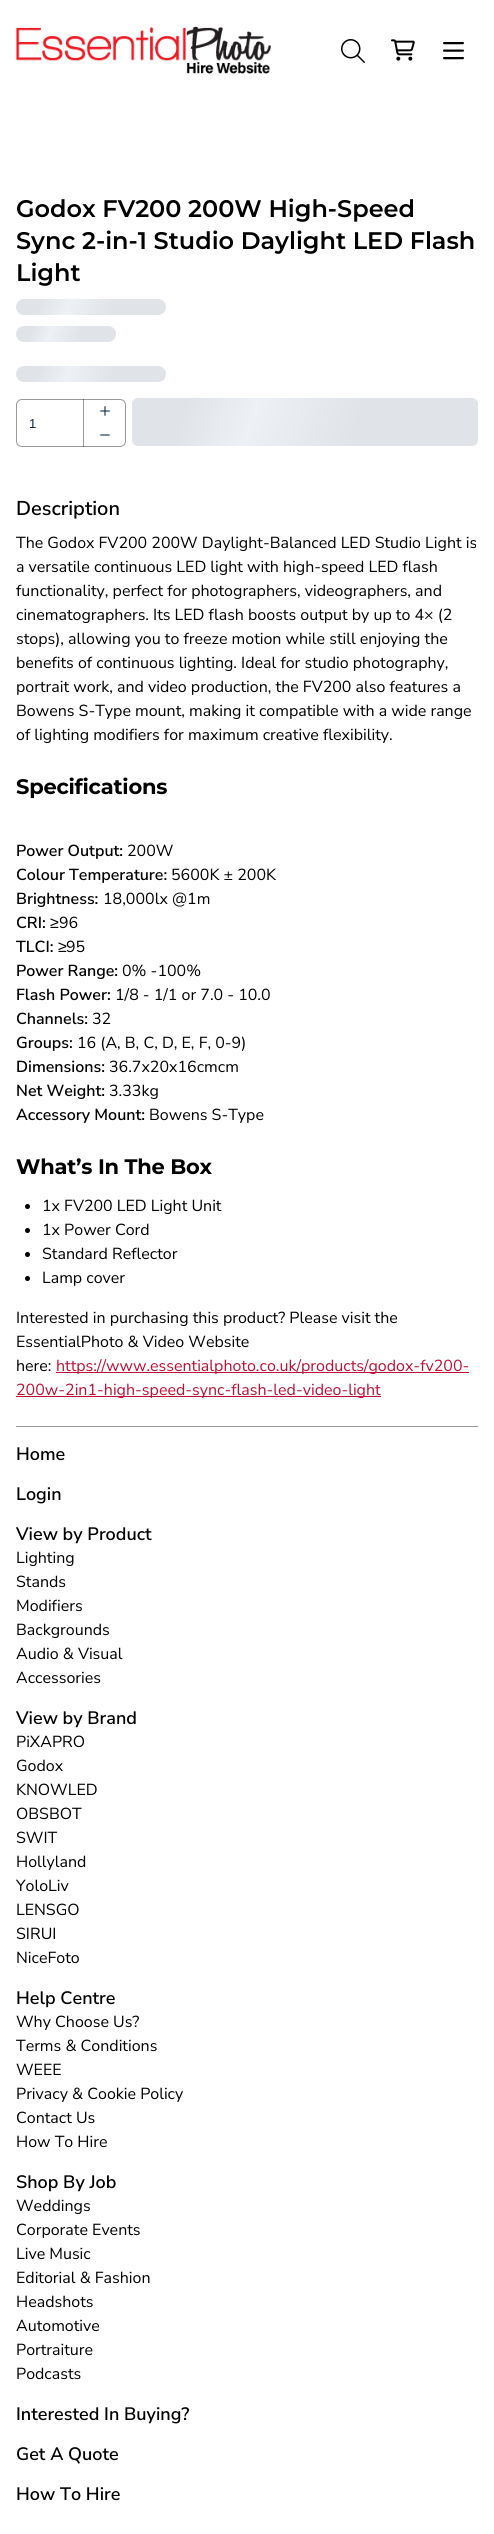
import math
import cairo

surface = cairo.ImageSurface(cairo.Format.RGB24, 494, 2534)
ctx = cairo.Context(surface)
options = cairo.FontOptions()
options.set_hint_metrics(cairo.HintMetrics.OFF)
options.set_hint_style(cairo.HintStyle.NONE)
ctx.set_font_options(options)
ctx.set_miter_limit(4)


def ink(r, g, b):
    ctx.set_source_rgb(r / 255, g / 255, b / 255)


def write(x, y, s, family, size, color, bold=False, italic=False):
    ctx.select_font_face(family, cairo.FontSlant.ITALIC if italic else cairo.FontSlant.NORMAL, cairo.FontWeight.BOLD if bold else cairo.FontWeight.NORMAL)
    ctx.set_font_size(size)
    ink(*color)
    ctx.move_to(x, y)
    ctx.show_text(s)


def write_spaced(x, y, s, letter, word):
    ctx.move_to(x, y)
    for ch in s:
        ctx.show_text(ch)
        ctx.rel_move_to(letter + word * (ch == ' '), 0)


def block(x, y, w, h, *color):
    ink(*color)
    ctx.rectangle(x, y, w, h)
    ctx.fill()


def round_path(x, y, w, h, r):
    ctx.new_sub_path()
    for i, (u, v) in enumerate([(x + w - r, y + h - r), (x + r, y + h - r), (x + r, y + r), (x + w - r, y + r)]):
        ctx.arc(u, v, r, i * math.pi / 2, (i + 1) * math.pi / 2)
    ctx.close_path()


def paste(path, x, y, w, h):
    ctx.save()
    ctx.set_source_surface(cairo.ImageSurface.create_from_png(path), x, y)
    ctx.rectangle(x, y, w, h)
    ctx.fill()
    ctx.restore()


s1 = dict(family="Montserrat Thin", size=24, color=(0, 0, 0))
s2 = dict(family="Liberation Sans", size=13, color=(12, 39, 71))
s3 = dict(family="Nunito Sans ExtraLight", size=20, color=(0, 0, 0))
s4 = dict(family="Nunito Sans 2 ExtraLight", size=16, color=(0, 0, 0))
s5 = dict(family="Nunito Sans ExtraLight", size=16, color=(0, 0, 0))
s6 = dict(family="Liberation Sans", size=16, color=(0, 0, 0))
s7 = dict(family="Nunito Sans 2 ExtraLight", size=16, color=(190, 15, 52))
s8 = dict(family="Nunito Sans ExtraLight", size=18, color=(0, 0, 0))

ink(255, 255, 255)
ctx.paint()
paste("pic1.png", 16, 26, 255, 48)
paste("pic2.png", 341, 39, 24, 24)
paste("pic3.png", 391, 39, 24, 22)
paste("pic4.png", 443, 42, 21, 18)
write(16, 217, "Godox FV200 200W High-Speed", **s1)
write(16, 249, "Sync 2-in-1 Studio Daylight LED Flash", **s1)
write(16, 281, "Light", **s1)
gradient = cairo.LinearGradient(31, 258, 301, 356)
gradient.add_color_stop_rgba(0.08, 0.878, 0.894, 0.91, 1)
gradient.add_color_stop_rgba(0.18, 0.929, 0.945, 0.961, 1)
gradient.add_color_stop_rgba(0.33, 0.878, 0.894, 0.91, 1)
ctx.set_source(gradient)
round_path(16, 299, 150, 16, 8)
ctx.fill()
gradient = cairo.LinearGradient(25, 301, 207, 367)
gradient.add_color_stop_rgba(0.08, 0.878, 0.894, 0.91, 1)
gradient.add_color_stop_rgba(0.18, 0.929, 0.945, 0.961, 1)
gradient.add_color_stop_rgba(0.33, 0.878, 0.894, 0.91, 1)
ctx.set_source(gradient)
round_path(16, 326, 100, 16, 8)
ctx.fill()
gradient = cairo.LinearGradient(31, 325, 301, 423)
gradient.add_color_stop_rgba(0.08, 0.878, 0.894, 0.91, 1)
gradient.add_color_stop_rgba(0.18, 0.929, 0.945, 0.961, 1)
gradient.add_color_stop_rgba(0.33, 0.878, 0.894, 0.91, 1)
ctx.set_source(gradient)
round_path(16, 366, 150, 16, 8)
ctx.fill()
round_path(16.5, 399.5, 109, 47, 5.5)
ink(153, 153, 153)
ctx.set_line_width(1)
ctx.stroke()
write(29, 428, "1", **s2)
ctx.set_source_rgba(0, 0, 0, 0.4)
ctx.rectangle(83, 399, 1, 48)
ctx.fill()
paste("pic5.png", 100, 406, 10, 10)
paste("pic6.png", 100, 434, 10, 2)
gradient = cairo.LinearGradient(165, 308, 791, 536)
gradient.add_color_stop_rgba(0.08, 0.878, 0.894, 0.91, 1)
gradient.add_color_stop_rgba(0.18, 0.929, 0.945, 0.961, 1)
gradient.add_color_stop_rgba(0.33, 0.878, 0.894, 0.91, 1)
ctx.set_source(gradient)
round_path(132, 398, 346, 48, 6)
ctx.fill()
write(16, 515, "Description", **s3)
write(16, 548, "The Godox FV200 200W Daylight-Balanced LED Studio Light is", **s4)
write(16, 572, "a versatile continuous LED light with high-speed LED flash", **s4)
write(16, 596, "functionality, perfect for photographers, videographers, and", **s4)
write(16, 620, "cinematographers. Its LED flash boosts output by up to 4× (2", **s4)
write(16, 644, "stops), allowing you to freeze motion while still enjoying the", **s4)
write(16, 668, "benefits of continuous lighting. Ideal for studio photography,", **s4)
write(16, 692, "portrait work, and video production, the FV200 also features a", **s4)
write(16, 716, "Bowens S-Type mount, making it compatible with a wide range", **s4)
write(16, 740, "of lighting modifiers for maximum creative flexibility.", **s4)
ctx.select_font_face("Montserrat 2 Thin")
ctx.set_font_size(21)
write_spaced(16, 794, "Specifications", -0.25, 0)
write(16, 856, "Power Output:", **s5)
write(127, 856, "200W", **s4)
write(16, 880, "Colour Temperature:", **s5)
write(171, 880, "5600K ± 200K", **s4)
write(16, 904, "Brightness:", **s5)
write(103, 904, "18,000lx @1m", **s4)
write(16, 928, "CRI:", **s5)
write(50, 928, "≥", **s6)
write(59, 928, "96", **s4)
write(16, 952, "TLCI:", **s5)
write(58, 952, "≥", **s6)
write(66, 952, "95", **s4)
write(16, 976, "Power Range:", **s5)
write(122, 976, "0% -100%", **s4)
write(16, 1000, "Flash Power:", **s5)
write(115, 1000, "1/8 - 1/1 or 7.0 - 10.0", **s4)
write(16, 1024, "Channels:", **s5)
write(92, 1024, "32", **s4)
write(16, 1048, "Groups:", **s5)
write(77, 1048, "16 (A, B, C, D, E, F, 0-9)", **s4)
write(16, 1072, "Dimensions:", **s5)
write(109, 1072, "36.7x20x16cmcm", **s4)
write(16, 1096, "Net Weight:", **s5)
write(109, 1096, "3.33kg", **s4)
write(16, 1120, "Accessory Mount:", **s5)
write(149, 1120, "Bowens S-Type", **s4)
ctx.select_font_face("Montserrat 2 Thin")
ctx.set_font_size(21)
write_spaced(16, 1174, "What’s In The Box", -0.25, 0)
ctx.new_path()
ctx.arc(27.5, 1206.5, 2.5, 0, 2 * math.pi)
ctx.fill()
write(42, 1211, "1x FV200 LED Light Unit", **s4)
ctx.new_path()
ctx.arc(27.5, 1230.5, 2.5, 0, 2 * math.pi)
ctx.fill()
write(42, 1235, "1x Power Cord", **s4)
ctx.new_path()
ctx.arc(27.5, 1254.5, 2.5, 0, 2 * math.pi)
ctx.fill()
write(42, 1259, "Standard Reflector", **s4)
ctx.new_path()
ctx.arc(27.5, 1278.5, 2.5, 0, 2 * math.pi)
ctx.fill()
write(42, 1283, "Lamp cover", **s4)
write(16, 1323, "Interested in purchasing this product? Please visit the", **s4)
write(16, 1347, "EssentialPhoto & Video Website", **s4)
write(16, 1371, "here:", **s4)
block(56, 1372, 413, 1, 190, 15, 52)
write(56, 1371, "https://www.essentialphoto.co.uk/products/godox-fv200-", **s7)
block(16, 1396, 365, 1, 190, 15, 52)
write(16, 1395, "200w-2in1-high-speed-sync-flash-led-video-light", **s7)
block(16, 1426, 462, 1, 153, 153, 153)
write(16, 1460, "Home", **s8)
write(16, 1500, "Login", **s8)
write(16, 1540, "View by Product", **s8)
write(16, 1563, "Lighting", **s4)
write(16, 1587, "Stands", **s4)
write(16, 1611, "Modifiers", **s4)
write(16, 1635, "Backgrounds", **s4)
write(16, 1659, "Audio & Visual", **s4)
write(16, 1683, "Accessories", **s4)
write(16, 1724, "View by Brand", **s8)
write(16, 1747, "PiXAPRO", **s4)
write(16, 1771, "Godox", **s4)
write(16, 1795, "KNOWLED", **s4)
write(16, 1819, "OBSBOT", **s4)
write(16, 1843, "SWIT", **s4)
write(16, 1867, "Hollyland", **s4)
write(16, 1891, "YoloLiv", **s4)
write(16, 1915, "LENSGO", **s4)
write(16, 1939, "SIRUI", **s4)
write(16, 1963, "NiceFoto", **s4)
write(16, 2004, "Help Centre", **s8)
write(16, 2027, "Why Choose Us?", **s4)
write(16, 2051, "Terms & Conditions", **s4)
write(16, 2075, "WEEE", **s4)
write(16, 2099, "Privacy & Cookie Policy", **s4)
write(16, 2123, "Contact Us", **s4)
write(16, 2147, "How To Hire", **s4)
write(16, 2188, "Shop By Job", **s8)
write(16, 2211, "Weddings", **s4)
write(16, 2235, "Corporate Events", **s4)
write(16, 2259, "Live Music", **s4)
write(16, 2283, "Editorial & Fashion", **s4)
write(16, 2307, "Headshots", **s4)
write(16, 2331, "Automotive", **s4)
write(16, 2355, "Portraiture", **s4)
write(16, 2379, "Podcasts", **s4)
write(16, 2420, "Interested In Buying?", **s8)
write(16, 2460, "Get A Quote", **s8)
write(16, 2500, "How To Hire", **s8)
surface.write_to_png("screenshot.png")
